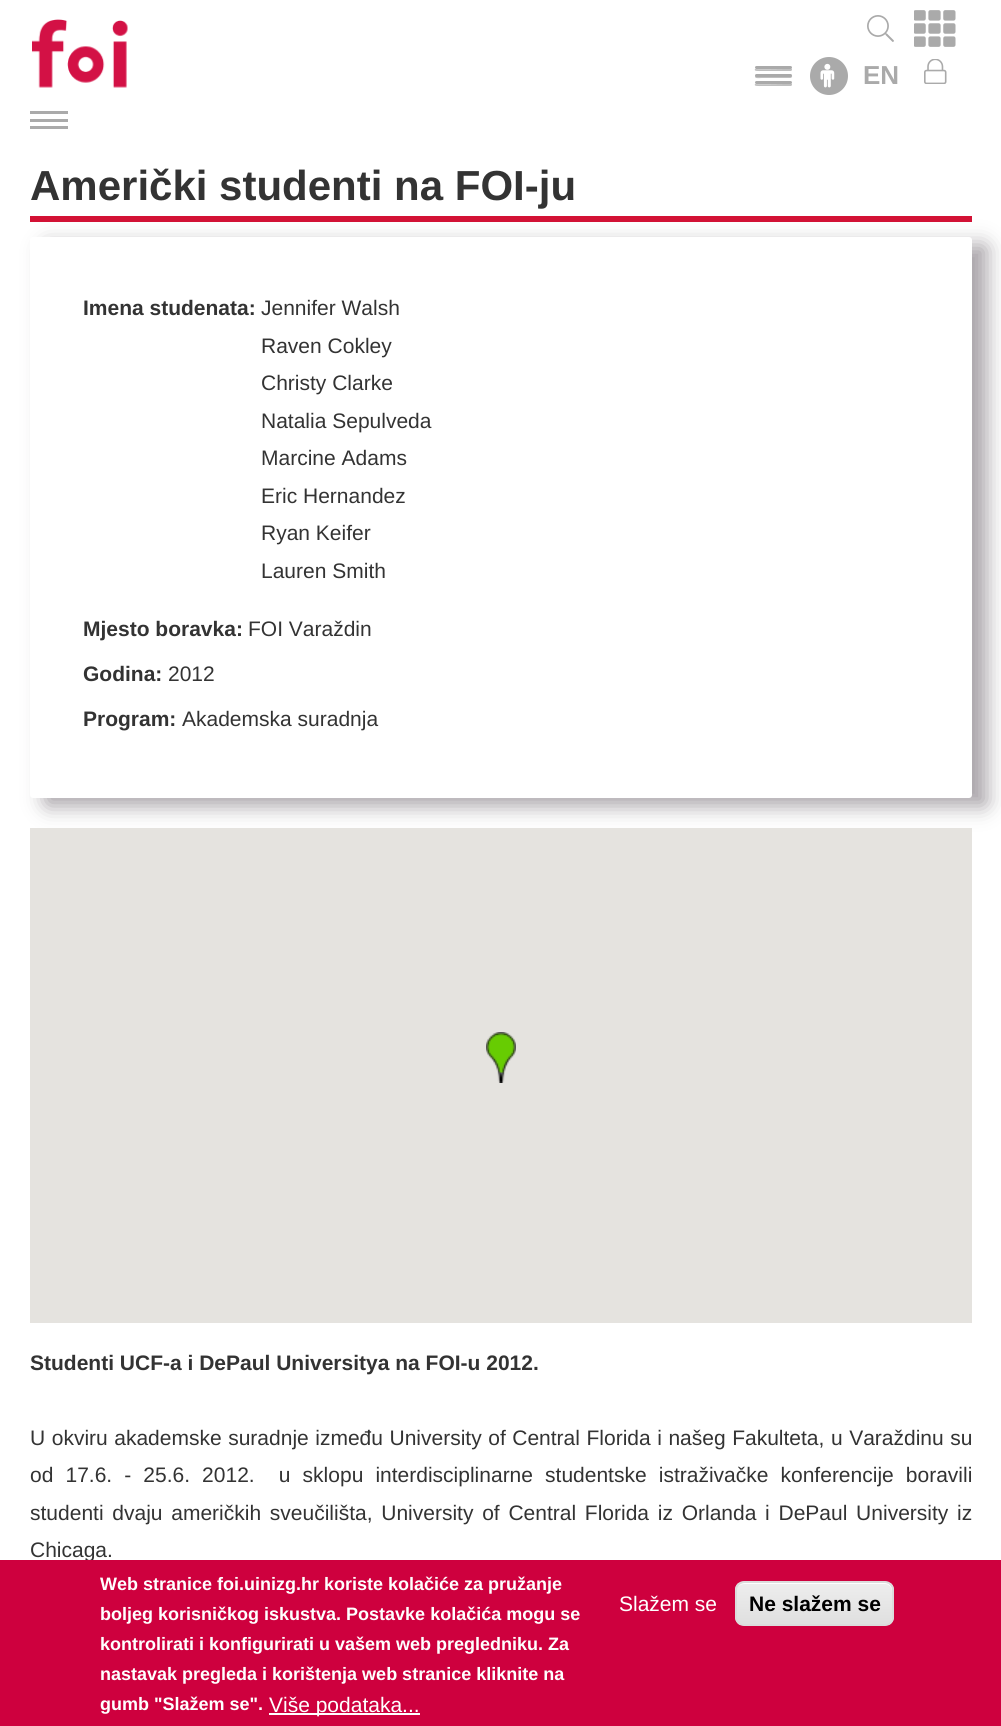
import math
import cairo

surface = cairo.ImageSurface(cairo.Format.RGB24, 1001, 1726)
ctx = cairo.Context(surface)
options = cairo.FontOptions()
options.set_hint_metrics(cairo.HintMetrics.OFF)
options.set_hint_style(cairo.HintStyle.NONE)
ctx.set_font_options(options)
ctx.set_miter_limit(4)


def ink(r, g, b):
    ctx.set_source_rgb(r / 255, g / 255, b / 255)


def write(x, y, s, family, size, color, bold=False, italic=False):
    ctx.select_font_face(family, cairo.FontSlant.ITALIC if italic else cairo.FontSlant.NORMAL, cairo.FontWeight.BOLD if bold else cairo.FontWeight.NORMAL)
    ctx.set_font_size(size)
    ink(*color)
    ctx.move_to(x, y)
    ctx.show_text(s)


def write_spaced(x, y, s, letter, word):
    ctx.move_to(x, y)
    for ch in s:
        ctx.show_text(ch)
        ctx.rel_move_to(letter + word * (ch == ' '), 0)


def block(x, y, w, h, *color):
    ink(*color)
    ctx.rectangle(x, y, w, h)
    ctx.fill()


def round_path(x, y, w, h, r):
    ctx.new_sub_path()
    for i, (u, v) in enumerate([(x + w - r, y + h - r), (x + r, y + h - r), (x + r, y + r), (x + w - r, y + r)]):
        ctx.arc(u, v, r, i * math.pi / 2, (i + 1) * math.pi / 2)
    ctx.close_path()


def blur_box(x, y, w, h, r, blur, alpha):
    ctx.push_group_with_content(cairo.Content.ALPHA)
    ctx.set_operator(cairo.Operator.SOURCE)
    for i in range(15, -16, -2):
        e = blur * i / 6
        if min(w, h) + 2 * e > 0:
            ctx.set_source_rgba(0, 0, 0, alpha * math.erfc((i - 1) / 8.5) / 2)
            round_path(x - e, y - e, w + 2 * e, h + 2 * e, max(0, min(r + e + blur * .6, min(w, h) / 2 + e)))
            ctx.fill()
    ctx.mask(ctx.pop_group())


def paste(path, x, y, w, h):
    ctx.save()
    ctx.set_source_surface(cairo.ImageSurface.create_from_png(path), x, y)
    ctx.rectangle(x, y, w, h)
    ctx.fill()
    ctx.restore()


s1 = dict(family="Liberation Sans", size=26, color=(170, 170, 170), bold=True)
s2 = dict(family="Liberation Sans", size=42, color=(51, 51, 51), bold=True)
s3 = dict(family="Liberation Sans", size=21, color=(51, 51, 51), bold=True)
s4 = dict(family="Liberation Sans", size=21, color=(51, 51, 51))
s5 = dict(family="Liberation Sans", size=18, color=(255, 255, 255), bold=True)
s6 = dict(family="Liberation Sans", size=21, color=(255, 255, 255))
s7 = dict(family="Liberation Sans", size=21, color=(0, 0, 0), bold=True)

ink(255, 255, 255)
ctx.paint()
paste("pic1.png", 32, 19, 96, 69)
ink(191, 191, 191)
ctx.new_path()
ctx.move_to(755, 69)
ctx.curve_to(753.5, 71.5, 758.5, 71, 762, 71)
ctx.line_to(791, 71)
ctx.curve_to(792, 70.5, 792.5, 69.5, 791.5, 68.5)
ctx.line_to(790.5, 69)
ctx.line_to(785, 69)
ctx.curve_to(781.5, 69, 756.5, 69.5, 755, 69)
ctx.close_path()
ctx.fill()
ink(170, 170, 170)
round_path(755, 66, 37, 3, 1.5)
ctx.fill()
ink(191, 191, 191)
ctx.new_path()
ctx.move_to(755, 76)
ctx.curve_to(754.5, 79, 759, 78, 762, 78)
ctx.line_to(790.5, 78)
ctx.curve_to(791.5, 78, 792.5, 76.5, 792, 75.5)
ctx.curve_to(791, 77.5, 785.5, 76.5, 785, 76.5)
ctx.curve_to(781.5, 76.5, 756, 77, 755, 76)
ctx.close_path()
ctx.fill()
ink(170, 170, 170)
round_path(755, 74, 37, 3, 1.5)
ctx.fill()
ink(191, 191, 191)
ctx.new_path()
ctx.move_to(755, 84)
ctx.curve_to(753.5, 86.5, 758.5, 86, 762, 86)
ctx.line_to(791, 86)
ctx.curve_to(792, 85.5, 792.5, 84.5, 791.5, 83.5)
ctx.line_to(790.5, 84)
ctx.line_to(785, 84)
ctx.curve_to(781.5, 84, 756.5, 84.5, 755, 84)
ctx.close_path()
ctx.fill()
ink(170, 170, 170)
round_path(755, 81, 37, 3, 1.5)
ctx.fill()
paste("pic2.png", 867, 15, 27, 27)
paste("pic3.png", 914, 10, 42, 37)
ctx.arc(829, 76, 19, 0, 2 * math.pi)
ctx.fill()
paste("pic4.png", 820, 63, 15, 25)
write(863, 84, "EN", **s1)
paste("pic5.png", 924, 59, 23, 25)
block(30, 111, 38, 3, 170, 170, 170)
block(30, 119, 38, 3, 170, 170, 170)
block(30, 126, 38, 3, 170, 170, 170)
block(30, 216, 942, 6, 211, 17, 52)
write(30, 200, "Američki studenti na FOI-ju", **s2)
ink(168, 163, 168)
blur_box(45, 245, 942, 561, 3, 10.5, 1)
ink(255, 255, 255)
round_path(30, 237, 942, 561, 3)
ctx.fill()
write(83, 315, "Imena studenata:", **s3)
write(261, 315, "Jennifer Walsh", **s4)
write(261, 353, "Raven Cokley", **s4)
write(261, 390, "Christy Clarke", **s4)
write(261, 428, "Natalia Sepulveda", **s4)
write(261, 465, "Marcine Adams", **s4)
write(261, 503, "Eric Hernandez", **s4)
write(261, 540, "Ryan Keifer", **s4)
write(261, 578, "Lauren Smith", **s4)
write(83, 636, "Mjesto boravka:", **s3)
write(248, 636, "FOI Varaždin", **s4)
write(83, 681, "Godina:", **s3)
write(168, 681, "2012", **s4)
write(83, 726, "Program:", **s3)
write(182, 726, "Akademska suradnja", **s4)
block(30, 828, 942, 495, 229, 227, 223)
paste("pic6.png", 486, 1032, 30, 51)
write(30, 1370, "Studenti UCF-a i DePaul Universitya na FOI-u 2012.", **s3)
ctx.select_font_face("Liberation Sans")
write_spaced(30, 1445, "U okviru akademske suradnje između University of Central Florida i našeg Fakulteta, u Varaždinu su", 0, 0.7)
write_spaced(30, 1482, "od 17.6. - 25.6. 2012.  u sklopu interdisciplinarne studentske istraživačke konferencije boravili", 0, 6.25)
write_spaced(30, 1520, "studenti dvaju američkih sveučilišta, University of Central Florida iz Orlanda i DePaul University iz", 0, 2.9)
write(30, 1557, "Chicaga.", **s4)
block(0, 1560, 1001, 166, 206, 0, 62)
write(100, 1590, "Web stranice foi.uinizg.hr koriste kolačiće za pružanje", **s5)
write(100, 1620, "boljeg korisničkog iskustva. Postavke kolačića mogu se", **s5)
write(100, 1650, "kontrolirati i konfigurirati u vašem web pregledniku. Za", **s5)
write(100, 1680, "nastavak pregleda i korištenja web stranice kliknite na", **s5)
write(100, 1710, "gumb \"Slažem se\".", **s5)
block(269, 1713, 151, 2, 255, 255, 255)
write(269, 1712, "Više podataka...", **s6)
write(619, 1611, "Slažem se", **s6)
ctx.save()
round_path(735, 1581, 159, 45, 9)
ctx.clip()
gradient = cairo.LinearGradient(815, 1583, 815, 1625)
gradient.add_color_stop_rgba(0.05, 0.929, 0.929, 0.929, 1)
gradient.add_color_stop_rgba(1, 0.875, 0.875, 0.875, 1)
ctx.set_source(gradient)
ctx.rectangle(735, 1583, 159, 42)
ctx.fill()
ctx.restore()
ctx.new_path()
ctx.move_to(744, 1584)
ctx.line_to(885, 1584)
ctx.curve_to(889, 1584, 892, 1587, 892, 1592)
ctx.line_to(892, 1618)
ctx.line_to(891, 1622)
ctx.curve_to(892, 1621, 893, 1619, 893, 1617)
ctx.line_to(893, 1591)
ctx.curve_to(893, 1587, 889, 1583, 885, 1583)
ctx.line_to(745, 1583)
ctx.curve_to(743, 1583, 740, 1584, 739, 1586)
ctx.curve_to(740, 1585, 742, 1584, 744, 1584)
ctx.close_path()
ctx.fill()
round_path(736, 1582, 157, 43, 8)
ink(220, 220, 220)
ctx.stroke()
write(749, 1611, "Ne slažem se", **s7)
surface.write_to_png("screenshot.png")
